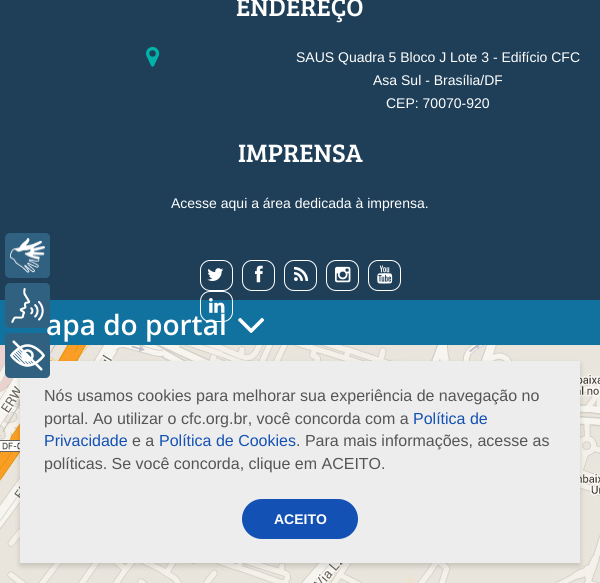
import math
import cairo

surface = cairo.ImageSurface(cairo.Format.RGB24, 600, 583)
ctx = cairo.Context(surface)
options = cairo.FontOptions()
options.set_hint_metrics(cairo.HintMetrics.OFF)
options.set_hint_style(cairo.HintStyle.NONE)
ctx.set_font_options(options)
ctx.set_miter_limit(4)


def ink(r, g, b):
    ctx.set_source_rgb(r / 255, g / 255, b / 255)


def write(x, y, s, family, size, color, bold=False, italic=False):
    ctx.select_font_face(family, cairo.FontSlant.ITALIC if italic else cairo.FontSlant.NORMAL, cairo.FontWeight.BOLD if bold else cairo.FontWeight.NORMAL)
    ctx.set_font_size(size)
    ink(*color)
    ctx.move_to(x, y)
    ctx.show_text(s)


def block(x, y, w, h, *color):
    ink(*color)
    ctx.rectangle(x, y, w, h)
    ctx.fill()


def round_path(x, y, w, h, r):
    ctx.new_sub_path()
    for i, (u, v) in enumerate([(x + w - r, y + h - r), (x + r, y + h - r), (x + r, y + r), (x + w - r, y + r)]):
        ctx.arc(u, v, r, i * math.pi / 2, (i + 1) * math.pi / 2)
    ctx.close_path()


def blur_box(x, y, w, h, r, blur, alpha):
    ctx.push_group_with_content(cairo.Content.ALPHA)
    ctx.set_operator(cairo.Operator.SOURCE)
    for i in range(15, -16, -2):
        e = blur * i / 6
        if min(w, h) + 2 * e > 0:
            ctx.set_source_rgba(0, 0, 0, alpha * math.erfc((i - 1) / 8.5) / 2)
            round_path(x - e, y - e, w + 2 * e, h + 2 * e, max(0, min(r + e + blur * .6, min(w, h) / 2 + e)))
            ctx.fill()
    ctx.mask(ctx.pop_group())


def paste(path, x, y, w, h):
    ctx.save()
    ctx.set_source_surface(cairo.ImageSurface.create_from_png(path), x, y)
    ctx.rectangle(x, y, w, h)
    ctx.fill()
    ctx.restore()


s1 = dict(family="Open Sans SemiBold", size=28, color=(255, 255, 255))
s2 = dict(family="Bree Serif", size=26, color=(255, 255, 255))
s3 = dict(family="Liberation Sans", size=14, color=(255, 255, 255))
s4 = dict(family="Liberation Sans", size=16, color=(85, 85, 85))
s5 = dict(family="Liberation Sans", size=16, color=(19, 81, 180))
s6 = dict(family="Liberation Sans", size=14, color=(255, 255, 255), bold=True)

ink(17, 114, 159)
ctx.paint()
block(0, 0, 600, 300, 31, 63, 88)
ink(49, 97, 129)
round_path(5, 233, 45, 45, 5)
ctx.fill()
paste("pic1.png", 10, 238, 35, 35)
ctx.new_path()
ctx.move_to(45, 233)
ctx.curve_to(48, 233, 50, 235, 50, 238)
ctx.line_to(50, 273)
ctx.curve_to(50, 276, 48, 278, 45, 278)
ctx.close_path()
ctx.fill()
round_path(200.5, 291.5, 32, 30, 9.5)
ink(255, 255, 255)
ctx.set_line_width(1)
ctx.stroke()
write(46, 335, "apa do portal", **s1)
ink(49, 97, 129)
round_path(5, 283, 45, 45, 5)
ctx.fill()
paste("pic2.png", 11, 288, 33, 35)
ctx.new_path()
ctx.move_to(45, 283)
ctx.curve_to(48, 283, 50, 285, 50, 288)
ctx.line_to(50, 323)
ctx.curve_to(50, 326, 48, 328, 45, 328)
ctx.close_path()
ctx.fill()
paste("pic12.png", 0, 345, 600, 238)
ink(0, 0, 0)
blur_box(20, 364, 560, 202, 0, 3, 0.16)
block(20, 361, 560, 202, 237, 237, 237)
ink(49, 97, 129)
round_path(5, 333, 45, 45, 5)
ctx.fill()
paste("pic3.png", 10, 340, 35, 31)
ctx.new_path()
ctx.move_to(45, 333)
ctx.curve_to(48, 333, 50, 335, 50, 338)
ctx.line_to(50, 373)
ctx.curve_to(50, 376, 48, 378, 45, 378)
ctx.close_path()
ctx.fill()
write(236, 16, "ENDEREÇO", **s2)
paste("pic4.png", 146, 46, 14, 21)
write(296, 62, "SAUS Quadra 5 Bloco J Lote 3 - Edifício CFC", **s3)
write(373, 85, "Asa Sul - Brasília/DF", **s3)
write(386, 108, "CEP: 70070-920", **s3)
write(238, 162, "IMPRENSA", **s2)
write(171, 208, "Acesse aqui a área dedicada à imprensa.", **s3)
round_path(200.5, 260.5, 32, 30, 9.5)
ctx.stroke()
paste("pic5.png", 207, 268, 17, 13)
round_path(242.5, 260.5, 32, 30, 9.5)
ctx.stroke()
paste("pic6.png", 255, 265, 8, 18)
round_path(284.5, 260.5, 32, 30, 9.5)
ctx.stroke()
paste("pic7.png", 294, 266, 15, 15)
round_path(326.5, 260.5, 32, 30, 9.5)
ctx.stroke()
paste("pic8.png", 335, 266, 16, 17)
round_path(368.5, 260.5, 32, 30, 9.5)
ctx.stroke()
paste("pic9.png", 377, 265, 16, 19)
paste("pic10.png", 209, 298, 16, 15)
paste("pic11.png", 238, 317, 27, 16)
write(44, 401, "Nós usamos cookies para melhorar sua experiência de navegação no", **s4)
write(44, 424, "portal. Ao utilizar o cfc.org.br, você concorda com a", **s4)
write(413, 424, "Política de", **s5)
write(44, 446, "Privacidade", **s5)
write(132, 446, "e a", **s4)
write(159, 446, "Política de Cookies", **s5)
write(296, 446, ". Para mais informações, acesse as", **s4)
write(44, 469, "políticas. Se você concorda, clique em ACEITO.", **s4)
ink(19, 81, 180)
round_path(242, 499, 116, 40, 20)
ctx.fill()
write(274, 524, "ACEITO", **s6)
surface.write_to_png("screenshot.png")
